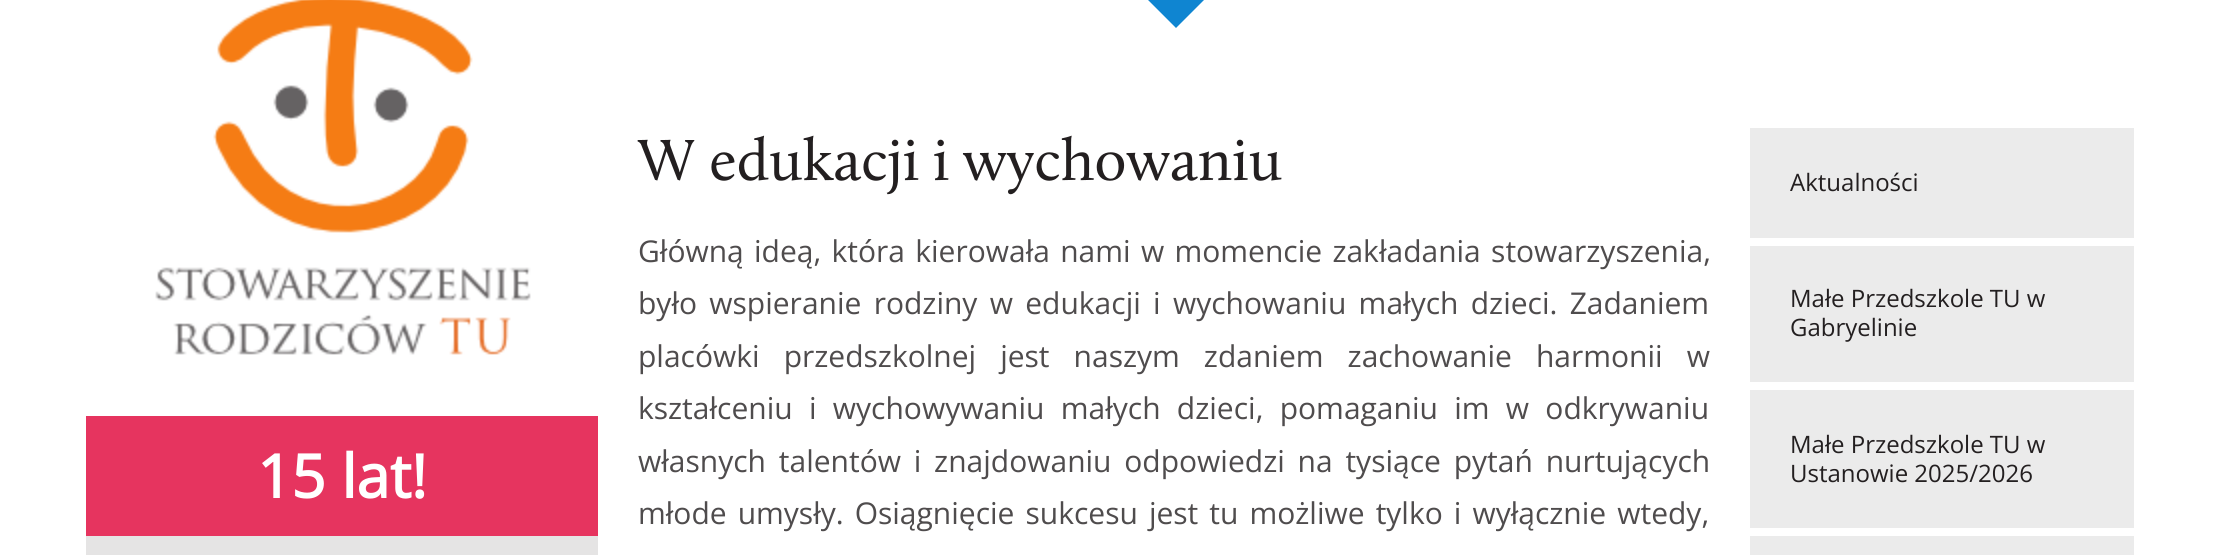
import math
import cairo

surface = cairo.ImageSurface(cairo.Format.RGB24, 2220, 555)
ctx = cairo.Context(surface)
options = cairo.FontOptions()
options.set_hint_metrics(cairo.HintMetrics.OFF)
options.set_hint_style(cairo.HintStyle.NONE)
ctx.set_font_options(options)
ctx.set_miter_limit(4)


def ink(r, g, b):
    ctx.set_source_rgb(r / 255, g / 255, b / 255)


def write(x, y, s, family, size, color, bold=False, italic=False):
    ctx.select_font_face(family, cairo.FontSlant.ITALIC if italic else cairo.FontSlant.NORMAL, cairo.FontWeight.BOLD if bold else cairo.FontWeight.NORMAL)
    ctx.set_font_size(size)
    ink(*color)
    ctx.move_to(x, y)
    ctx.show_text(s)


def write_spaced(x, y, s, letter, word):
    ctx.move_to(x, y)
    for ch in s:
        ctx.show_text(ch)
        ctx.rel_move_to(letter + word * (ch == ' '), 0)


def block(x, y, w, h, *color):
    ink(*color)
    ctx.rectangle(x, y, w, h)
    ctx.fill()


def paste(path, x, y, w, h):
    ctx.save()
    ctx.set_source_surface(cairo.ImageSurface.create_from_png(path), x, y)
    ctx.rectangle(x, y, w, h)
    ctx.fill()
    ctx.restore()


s1 = dict(family="Open Sans", size=60, color=(255, 255, 255), bold=True)
s2 = dict(family="Open Sans", size=24, color=(35, 31, 32))

ink(255, 255, 255)
ctx.paint()
ink(15, 133, 209)
ctx.new_path()
ctx.move_to(1136, -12)
ctx.line_to(1216, -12)
ctx.line_to(1176, 28)
ctx.close_path()
ctx.fill()
paste("pic1.png", 155, 0, 376, 355)
block(86, 536, 512, 19, 229, 228, 228)
block(86, 416, 512, 120, 230, 52, 95)
write(257, 498, "15 lat!", **s1)
paste("pic2.png", 637, 135, 645, 60)
ctx.select_font_face("Open Sans")
ctx.set_font_size(30)
ink(79, 76, 77)
write_spaced(638, 262, "Główną ideą, która kierowała nami w momencie zakładania stowarzyszenia,", 0, 2.5)
write_spaced(638, 314, "było wspieranie rodziny w edukacji i wychowaniu małych dzieci. Zadaniem", 0, 4.5)
write_spaced(638, 367, "placówki przedszkolnej jest naszym zdaniem zachowanie harmonii w", 0, 16.25)
write_spaced(638, 419, "kształceniu i wychowywaniu małych dzieci, pomaganiu im w odkrywaniu", 0, 8.5)
write_spaced(638, 472, "własnych talentów i znajdowaniu odpowiedzi na tysiące pytań nurtujących", 0, 5)
write_spaced(638, 524, "młode umysły. Osiągnięcie sukcesu jest tu możliwe tylko i wyłącznie wtedy,", 0, 3.25)
block(1750, 128, 384, 110, 235, 235, 235)
write(1790, 191, "Aktualności", **s2)
block(1750, 246, 384, 136, 235, 235, 235)
write(1790, 307, "Małe Przedszkole TU w", **s2)
write(1790, 336, "Gabryelinie", **s2)
block(1750, 390, 384, 138, 235, 235, 235)
write(1790, 453, "Małe Przedszkole TU w", **s2)
write(1790, 482, "Ustanowie 2025/2026", **s2)
block(1750, 536, 384, 19, 235, 235, 235)
surface.write_to_png("screenshot.png")
